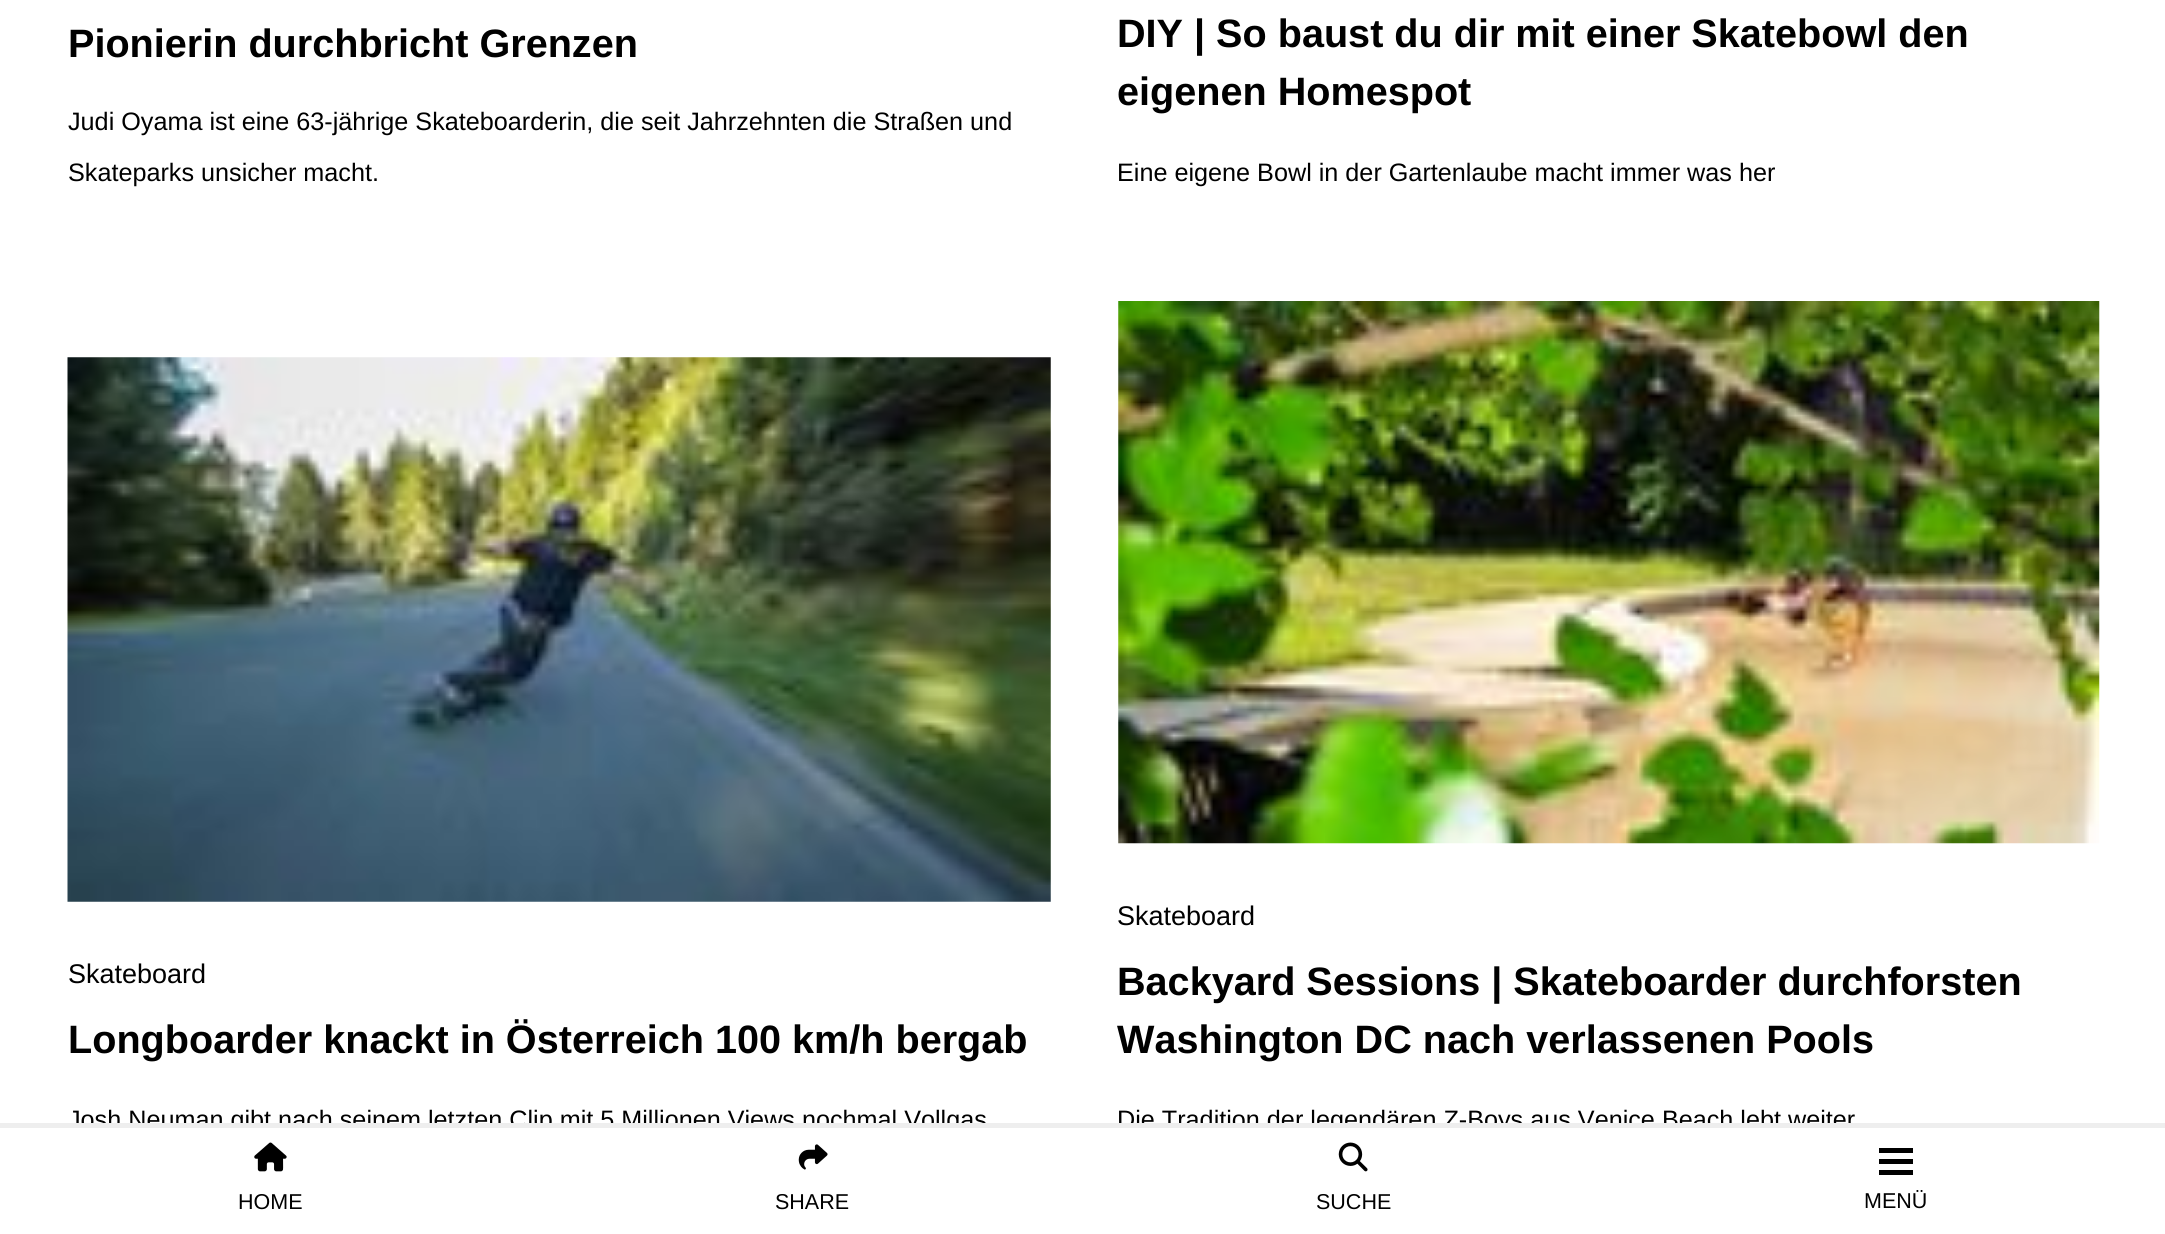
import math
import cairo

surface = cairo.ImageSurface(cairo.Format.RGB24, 2165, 1234)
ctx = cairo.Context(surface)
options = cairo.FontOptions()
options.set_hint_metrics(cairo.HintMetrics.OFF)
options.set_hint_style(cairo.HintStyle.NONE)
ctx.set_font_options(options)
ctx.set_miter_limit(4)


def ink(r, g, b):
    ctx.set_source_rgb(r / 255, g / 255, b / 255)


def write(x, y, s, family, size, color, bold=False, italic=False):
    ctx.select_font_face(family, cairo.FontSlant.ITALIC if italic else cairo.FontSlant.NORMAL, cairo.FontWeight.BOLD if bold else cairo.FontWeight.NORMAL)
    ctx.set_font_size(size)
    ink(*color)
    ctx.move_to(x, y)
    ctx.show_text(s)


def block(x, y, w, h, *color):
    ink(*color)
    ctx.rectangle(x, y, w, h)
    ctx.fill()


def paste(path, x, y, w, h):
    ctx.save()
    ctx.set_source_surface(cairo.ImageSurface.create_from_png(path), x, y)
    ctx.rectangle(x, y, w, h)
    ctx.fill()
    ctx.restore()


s1 = dict(family="Liberation Sans", size=39.6, color=(0, 0, 0), bold=True)
s2 = dict(family="Liberation Sans", size=25.2, color=(0, 0, 0))
s3 = dict(family="Liberation Sans", size=27, color=(0, 0, 0))
s4 = dict(family="Liberation Sans", size=21.5, color=(0, 0, 0))

ink(255, 255, 255)
ctx.paint()
write(68, 57, "Pionierin durchbricht Grenzen", **s1)
write(68, 130, "Judi Oyama ist eine 63-jährige Skateboarderin, die seit Jahrzehnten die Straßen und", **s2)
write(68, 181, "Skateparks unsicher macht.", **s2)
write(1117, 47, "DIY | So baust du dir mit einer Skatebowl den", **s1)
write(1117, 105, "eigenen Homespot", **s1)
write(1117, 181, "Eine eigene Bowl in der Gartenlaube macht immer was her", **s2)
paste("pic1.png", 67, 357, 984, 545)
write(68, 983, "Skateboard", **s3)
write(68, 1053, "Longboarder knackt in Österreich 100 km/h bergab", **s1)
write(68, 1128, "Josh Neuman gibt nach seinem letzten Clip mit 5 Millionen Views nochmal Vollgas", **s2)
paste("pic2.png", 1118, 301, 982, 543)
write(1117, 925, "Skateboard", **s3)
write(1117, 995, "Backyard Sessions | Skateboarder durchforsten", **s1)
write(1117, 1053, "Washington DC nach verlassenen Pools", **s1)
write(1117, 1128, "Die Tradition der legendären Z-Boys aus Venice Beach lebt weiter", **s2)
block(71, 1128, 1771, 6, 255, 255, 255)
block(0, 1123, 2165, 5, 238, 238, 238)
paste("pic3.png", 254, 1142, 33, 30)
write(238, 1209, "HOME", **s4)
paste("pic4.png", 798, 1144, 30, 26)
write(775, 1209, "SHARE", **s4)
paste("pic5.png", 1338, 1142, 30, 30)
write(1316, 1209, "SUCHE", **s4)
block(1879, 1159, 34, 5, 0, 0, 0)
block(1879, 1148, 34, 5, 0, 0, 0)
block(1879, 1170, 34, 5, 0, 0, 0)
write(1864, 1208, "MENÜ", **s4)
surface.write_to_png("screenshot.png")
